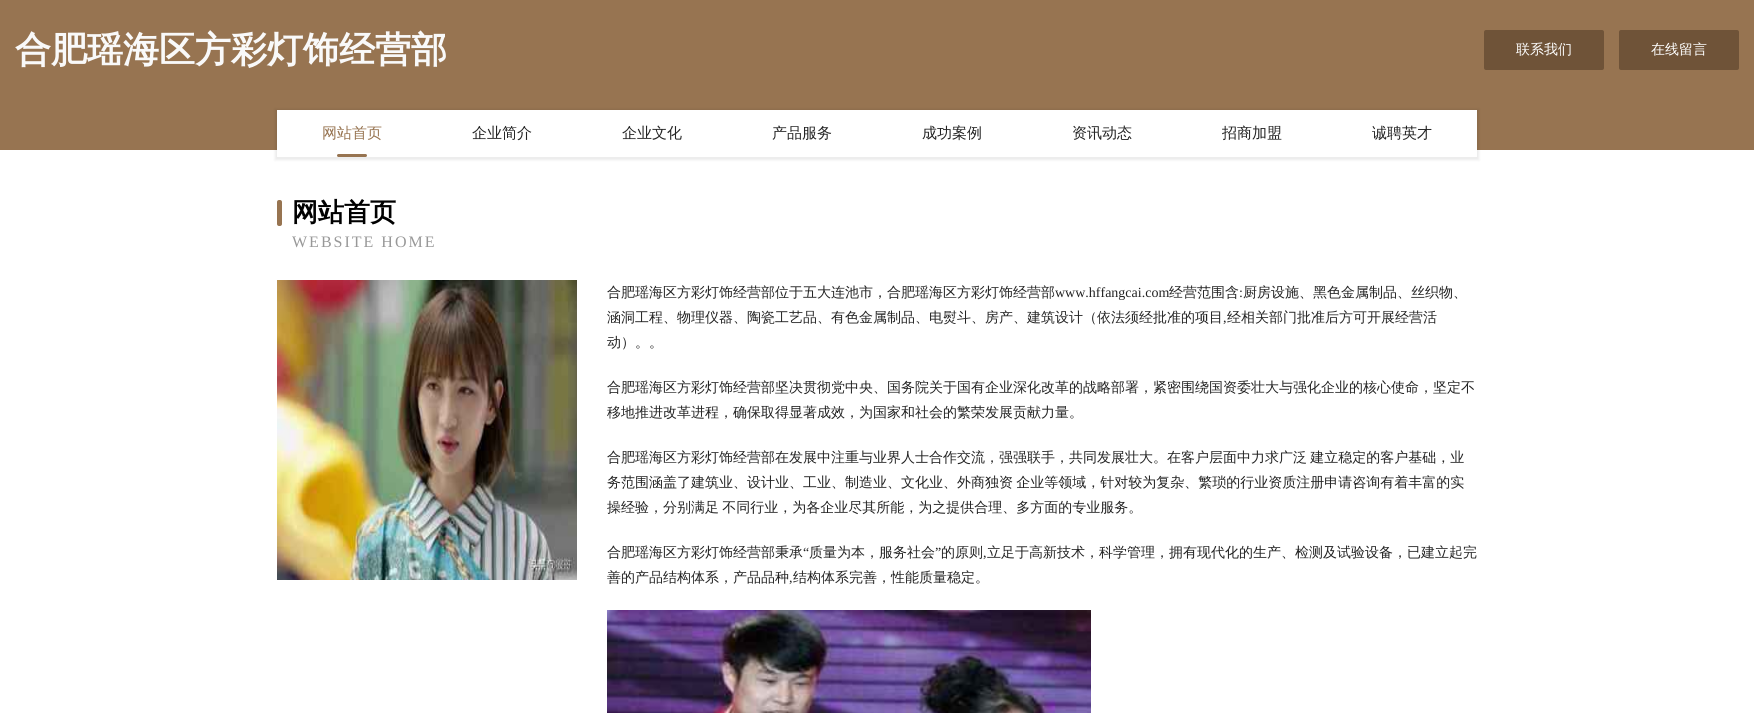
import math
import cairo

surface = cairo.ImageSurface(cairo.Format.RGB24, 1754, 713)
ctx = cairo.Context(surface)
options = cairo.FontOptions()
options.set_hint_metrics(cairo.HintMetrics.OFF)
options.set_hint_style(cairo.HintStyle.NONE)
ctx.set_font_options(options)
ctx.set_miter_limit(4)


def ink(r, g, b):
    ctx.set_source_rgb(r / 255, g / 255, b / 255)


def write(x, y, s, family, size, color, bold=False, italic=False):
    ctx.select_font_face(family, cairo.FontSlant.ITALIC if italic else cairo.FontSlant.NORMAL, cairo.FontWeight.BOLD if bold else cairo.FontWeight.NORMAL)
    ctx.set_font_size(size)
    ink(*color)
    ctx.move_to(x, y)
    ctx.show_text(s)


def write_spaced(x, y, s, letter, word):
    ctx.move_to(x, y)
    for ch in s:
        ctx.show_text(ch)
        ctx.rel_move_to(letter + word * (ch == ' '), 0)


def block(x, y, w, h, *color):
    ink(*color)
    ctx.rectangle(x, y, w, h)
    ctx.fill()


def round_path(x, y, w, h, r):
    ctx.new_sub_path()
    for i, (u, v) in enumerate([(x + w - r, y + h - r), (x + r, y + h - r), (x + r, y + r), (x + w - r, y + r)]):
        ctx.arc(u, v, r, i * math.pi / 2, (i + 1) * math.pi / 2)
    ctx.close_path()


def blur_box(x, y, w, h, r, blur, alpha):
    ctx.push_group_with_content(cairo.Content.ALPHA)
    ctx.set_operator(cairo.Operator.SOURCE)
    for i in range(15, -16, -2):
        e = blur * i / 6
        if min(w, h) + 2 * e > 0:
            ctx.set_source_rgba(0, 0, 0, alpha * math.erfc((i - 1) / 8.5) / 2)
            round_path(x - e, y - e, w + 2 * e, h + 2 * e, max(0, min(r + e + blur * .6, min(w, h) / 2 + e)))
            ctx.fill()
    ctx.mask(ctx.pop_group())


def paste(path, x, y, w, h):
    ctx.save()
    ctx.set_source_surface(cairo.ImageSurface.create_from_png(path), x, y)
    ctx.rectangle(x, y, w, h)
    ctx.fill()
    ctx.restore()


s1 = dict(family="WenQuanYi Zen Hei", size=36, color=(249, 249, 249), bold=True)
s2 = dict(family="WenQuanYi Zen Hei Medium", size=14, color=(255, 255, 255))
s3 = dict(family="WenQuanYi Zen Hei Medium", size=15, color=(151, 116, 81))
s4 = dict(family="WenQuanYi Zen Hei Medium", size=15, color=(35, 35, 35))
s5 = dict(family="WenQuanYi Zen Hei", size=26, color=(0, 0, 0), bold=True)
s6 = dict(family="WenQuanYi Zen Hei Medium", size=14, color=(35, 35, 35))
s7 = dict(family="Liberation Serif", size=14, color=(35, 35, 35))

ink(255, 255, 255)
ctx.paint()
block(0, 0, 1754, 150, 151, 116, 81)
write(15, 62, "合肥瑶海区方彩灯饰经营部", **s1)
ink(111, 83, 56)
round_path(1484, 30, 120, 40, 2)
ctx.fill()
write(1516, 54, "联系我们", **s2)
ink(111, 83, 56)
round_path(1619, 30, 120, 40, 2)
ctx.fill()
write(1651, 54, "在线留言", **s2)
ink(0, 0, 0)
blur_box(275, 109, 1204, 51, 0, 1.5, 0.08)
block(277, 110, 1200, 47, 255, 255, 255)
write(322, 138, "网站首页", **s3)
round_path(337, 154, 30, 3, 1.5)
ctx.fill()
write(472, 138, "企业简介", **s4)
write(622, 138, "企业文化", **s4)
write(772, 138, "产品服务", **s4)
write(922, 138, "成功案例", **s4)
write(1072, 138, "资讯动态", **s4)
write(1222, 138, "招商加盟", **s4)
write(1372, 138, "诚聘英才", **s4)
ink(151, 116, 81)
round_path(277, 200, 5, 26, 2)
ctx.fill()
write(292, 221, "网站首页", **s5)
ctx.select_font_face("Liberation Serif")
ctx.set_font_size(16)
ink(152, 152, 152)
write_spaced(292, 247, "WEBSITE HOME", 2, 0)
paste("pic1.png", 277, 280, 300, 300)
write(607, 297, "合肥瑶海区方彩灯饰经营部位于五大连池市，合肥瑶海区方彩灯饰经营部", **s6)
write(1055, 297, "www.hffangcai.com", **s7)
write(1169, 297, "经营范围含", **s6)
write(1239, 297, ":", **s7)
write(1243, 297, "厨房设施、黑色金属制品、丝织物、", **s6)
write(607, 322, "涵洞工程、物理仪器、陶瓷工艺品、有色金属制品、电熨斗、房产、建筑设计（依法须经批准的项目", **s6)
write(1223, 322, ",", **s7)
write(1227, 322, "经相关部门批准后方可开展经营活", **s6)
write(607, 347, "动）。。", **s6)
write(607, 392, "合肥瑶海区方彩灯饰经营部坚决贯彻党中央、国务院关于国有企业深化改革的战略部署，紧密围绕国资委壮大与强化企业的核心使命，坚定不", **s6)
write(607, 417, "移地推进改革进程，确保取得显著成效，为国家和社会的繁荣发展贡献力量。", **s6)
write_spaced(607, 462, "合肥瑶海区方彩灯饰经营部在发展中注重与业界人士合作交流，强强联手，共同发展壮大。在客户层面中力求广泛 建立稳定的客户基础，业", 0, -1)
write_spaced(607, 487, "务范围涵盖了建筑业、设计业、工业、制造业、文化业、外商独资 企业等领域，针对较为复杂、繁琐的行业资质注册申请咨询有着丰富的实", 0, -1)
write_spaced(607, 512, "操经验，分别满足 不同行业，为各企业尽其所能，为之提供合理、多方面的专业服务。", 0, -1)
write(607, 557, "合肥瑶海区方彩灯饰经营部秉承", **s6)
write(803, 557, "“", **s7)
write(809, 557, "质量为本，服务社会", **s6)
write(935, 557, "”", **s7)
write(941, 557, "的原则", **s6)
write(987, 557, "立足于高新技术，科学管理，拥有现代化的生产、检测及试验设备，已建立起完", **s6)
write(983, 557, ",", **s7)
write(607, 582, "善的产品结构体系，产品品种", **s6)
write(789, 582, ",", **s7)
write(793, 582, "结构体系完善，性能质量稳定。", **s6)
paste("pic2.png", 607, 610, 484, 103)
surface.write_to_png("screenshot.png")
